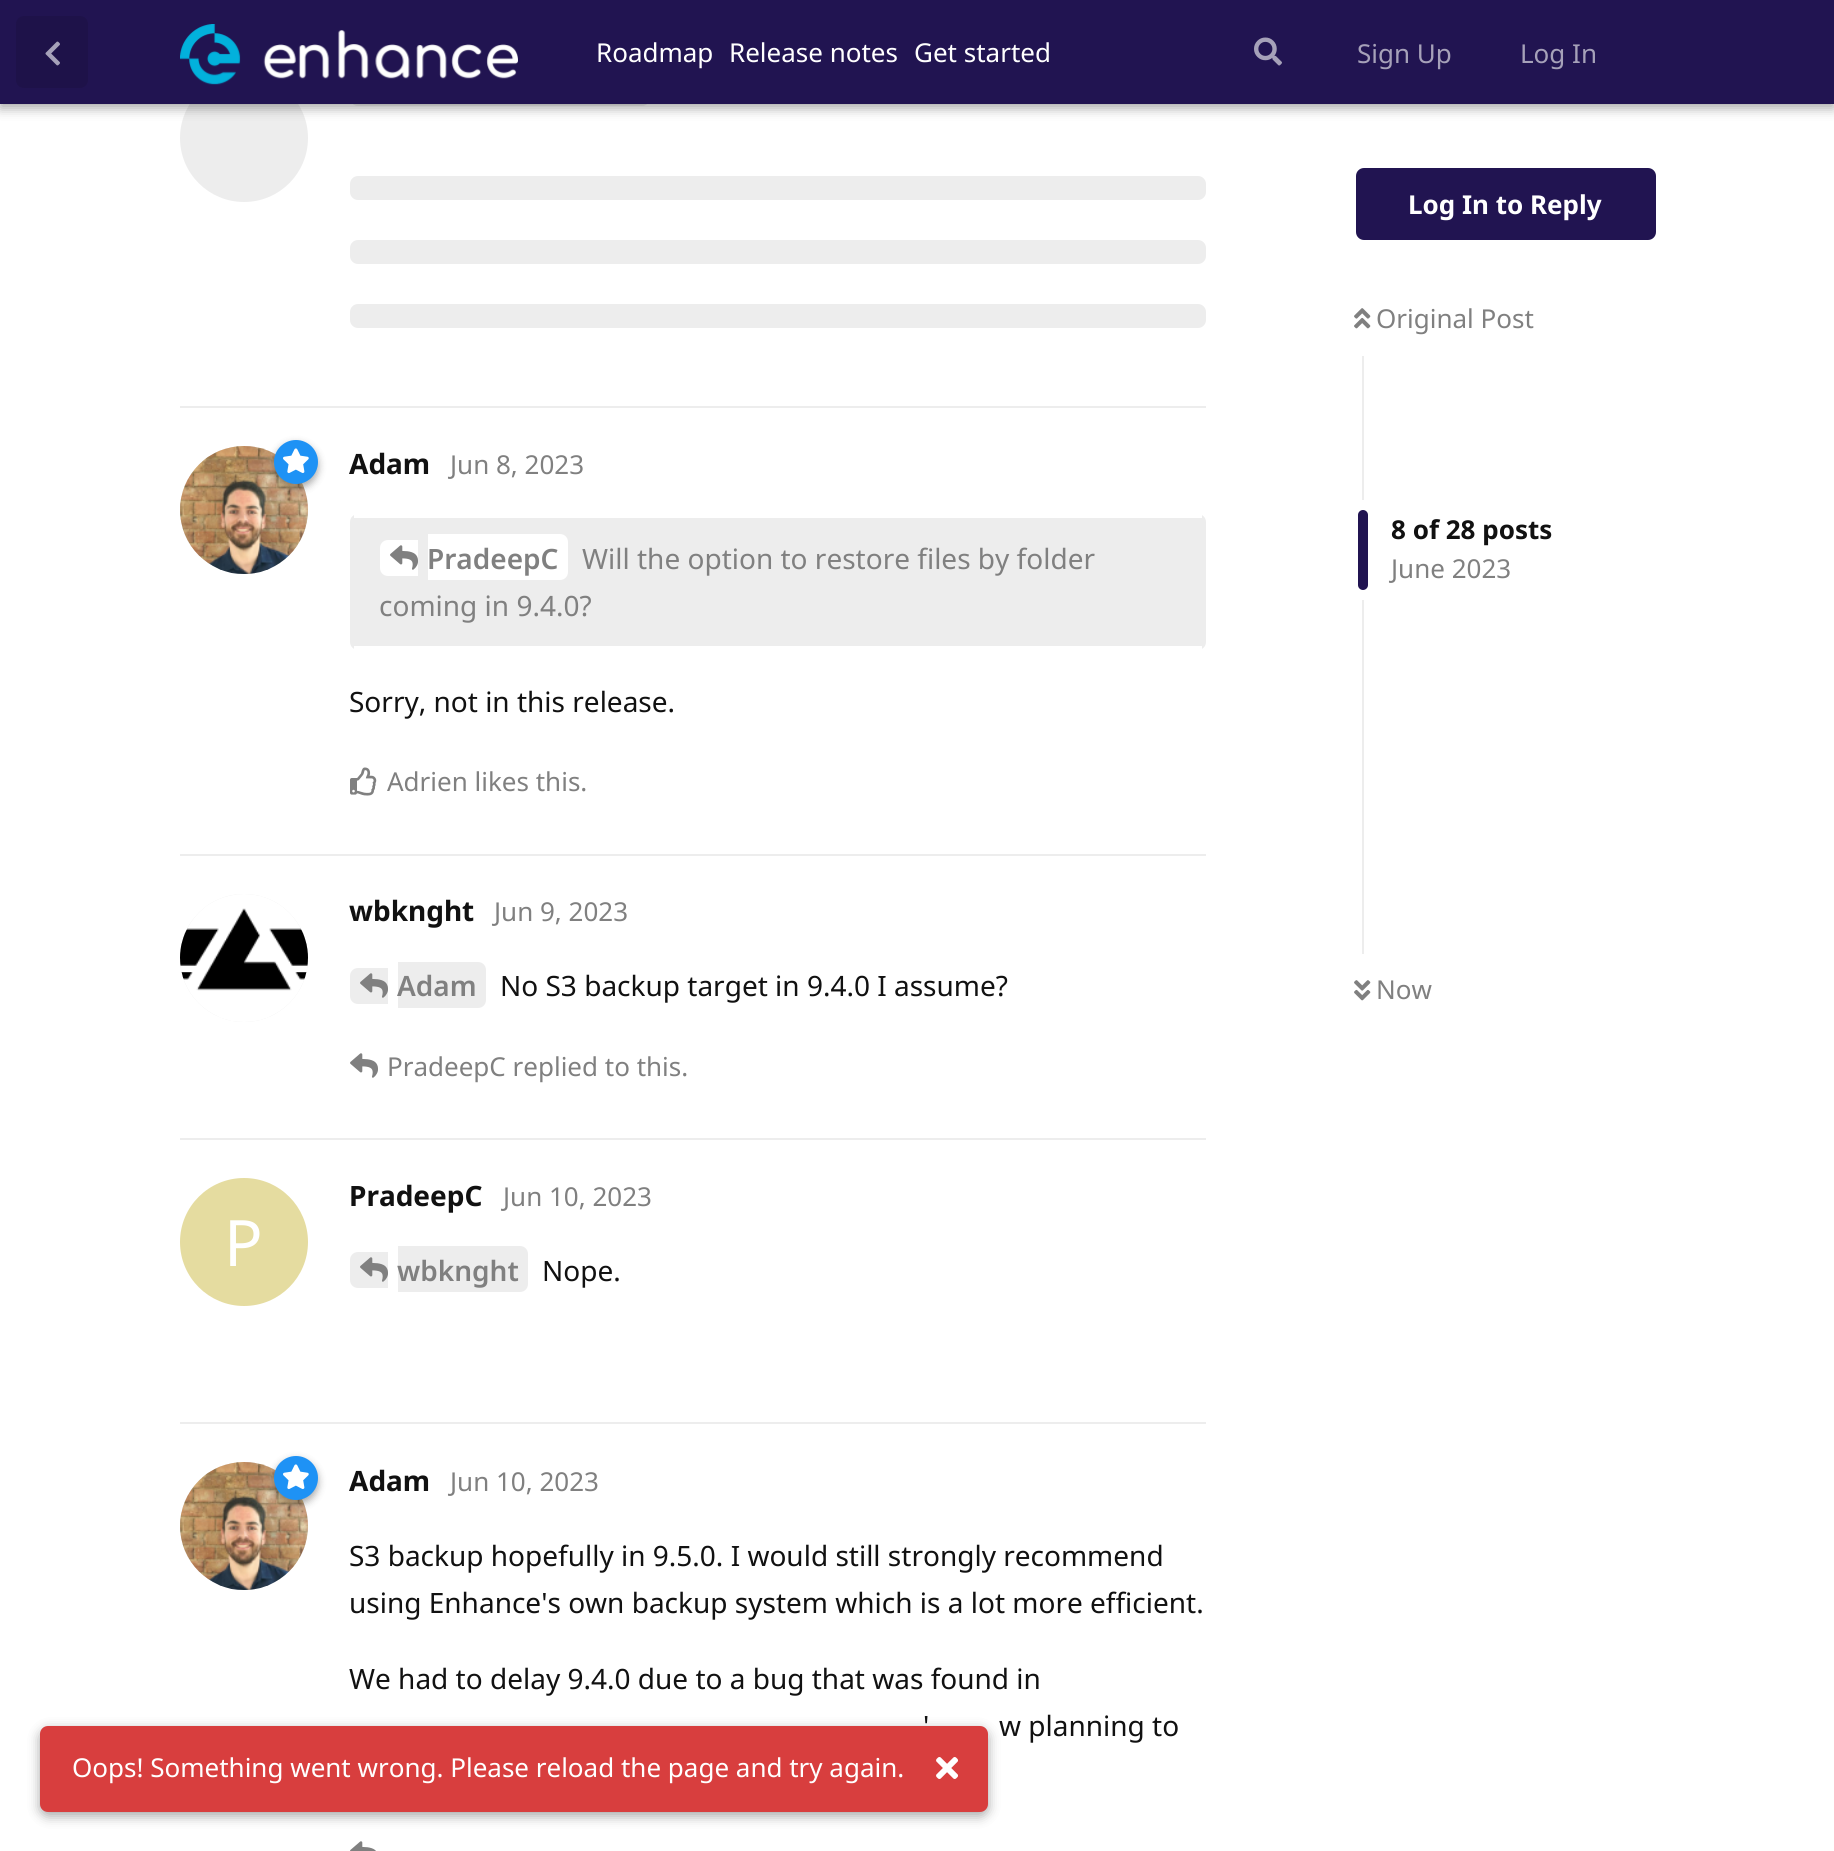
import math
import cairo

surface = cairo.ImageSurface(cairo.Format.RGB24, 1834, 1851)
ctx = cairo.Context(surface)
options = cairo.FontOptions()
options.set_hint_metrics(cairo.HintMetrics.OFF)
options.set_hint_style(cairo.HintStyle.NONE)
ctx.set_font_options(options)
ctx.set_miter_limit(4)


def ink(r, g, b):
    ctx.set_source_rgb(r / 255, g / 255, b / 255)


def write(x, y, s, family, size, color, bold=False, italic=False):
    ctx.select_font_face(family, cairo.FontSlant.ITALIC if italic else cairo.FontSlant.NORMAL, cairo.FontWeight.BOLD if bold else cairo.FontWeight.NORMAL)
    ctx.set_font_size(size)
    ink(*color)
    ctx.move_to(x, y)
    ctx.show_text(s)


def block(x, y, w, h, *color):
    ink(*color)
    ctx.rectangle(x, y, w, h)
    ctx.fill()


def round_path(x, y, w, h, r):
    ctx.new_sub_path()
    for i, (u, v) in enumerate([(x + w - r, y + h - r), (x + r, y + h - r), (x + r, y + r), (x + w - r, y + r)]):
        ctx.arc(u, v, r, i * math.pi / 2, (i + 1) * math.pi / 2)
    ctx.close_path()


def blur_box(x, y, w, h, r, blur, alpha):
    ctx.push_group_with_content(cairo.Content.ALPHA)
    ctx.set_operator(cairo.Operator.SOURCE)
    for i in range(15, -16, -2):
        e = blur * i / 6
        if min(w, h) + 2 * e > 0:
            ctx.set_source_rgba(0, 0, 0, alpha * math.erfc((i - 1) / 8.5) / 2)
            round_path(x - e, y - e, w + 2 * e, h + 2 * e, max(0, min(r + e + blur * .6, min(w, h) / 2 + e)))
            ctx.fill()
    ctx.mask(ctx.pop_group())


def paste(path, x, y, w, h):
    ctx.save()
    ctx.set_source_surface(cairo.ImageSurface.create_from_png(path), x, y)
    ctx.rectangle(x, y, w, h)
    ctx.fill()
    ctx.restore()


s1 = dict(family="Noto Sans", size=26, color=(255, 255, 255))
s2 = dict(family="Noto Sans", size=26, color=(166, 161, 185))
s3 = dict(family="Noto Sans", size=28, color=(17, 17, 17), bold=True)
s4 = dict(family="Noto Sans", size=26, color=(128, 128, 128))
s5 = dict(family="Noto Sans SemiBold", size=28, color=(128, 128, 128))
s6 = dict(family="Noto Sans", size=28, color=(128, 128, 128))
s7 = dict(family="Noto Sans", size=28, color=(17, 17, 17))
s8 = dict(family="Noto Sans", size=64, color=(255, 255, 255))
s9 = dict(family="Noto Sans", size=26, color=(255, 255, 255), bold=True)
s10 = dict(family="Noto Sans", size=26, color=(17, 17, 17), bold=True)

ink(255, 255, 255)
ctx.paint()
ink(237, 237, 237)
ctx.arc(244, 138, 64, 0, 2 * math.pi)
ctx.fill()
round_path(350, 74, 300, 32, 8)
ctx.fill()
ink(0, 0, 0)
blur_box(0, 4, 1834, 104, 0, 6, 0.35)
block(0, 0, 1834, 104, 33, 20, 81)
ink(30, 18, 73)
round_path(16, 16, 72, 72, 8)
ctx.fill()
paste("pic1.png", 45, 41, 15, 25)
paste("pic2.png", 180, 24, 338, 61)
write(596, 62, "Roadmap", **s1)
write(729, 62, "Release notes", **s1)
write(914, 62, "Get started", **s1)
paste("pic3.png", 1254, 37, 28, 29)
write(1357, 63, "Sign Up", **s2)
write(1520, 63, "Log In", **s2)
block(180, 406, 1026, 2, 237, 237, 237)
round_path(350, 176, 856, 24, 8)
ctx.fill()
round_path(350, 240, 856, 24, 8)
ctx.fill()
round_path(350, 304, 856, 24, 8)
ctx.fill()
block(180, 854, 1026, 2, 237, 237, 237)
ctx.arc(244, 510, 64, 0, 2 * math.pi)
ctx.fill()
paste("pic5.png", 180, 446, 128, 128)
ink(0, 0, 0)
blur_box(274, 444, 44, 44, 22, 4, 0.35)
ink(30, 146, 245)
ctx.arc(296, 462, 22, 0, 2 * math.pi)
ctx.fill()
paste("pic4.png", 283, 448, 26, 26)
write(349, 474, "Adam", **s3)
write(450, 474, "Jun 8, 2023", **s4)
ink(237, 237, 237)
round_path(350, 514, 856, 136, 8)
ctx.fill()
block(354, 514, 848, 4, 255, 255, 255)
block(354, 646, 848, 4, 255, 255, 255)
ctx.new_path()
ctx.move_to(388, 540)
ctx.line_to(418, 540)
ctx.line_to(418, 576)
ctx.line_to(388, 576)
ctx.curve_to(383.5, 576, 380, 572.5, 380, 568)
ctx.line_to(380, 548)
ctx.curve_to(380, 543.5, 383.5, 540, 388, 540)
ctx.close_path()
ctx.fill()
ctx.new_path()
ctx.move_to(428, 534)
ctx.line_to(560, 534)
ctx.curve_to(564.5, 534, 568, 537.5, 568, 542)
ctx.line_to(568, 572)
ctx.curve_to(568, 576.5, 564.5, 580, 560, 580)
ctx.line_to(428, 580)
ctx.close_path()
ctx.fill()
paste("pic6.png", 390, 545, 28, 25)
write(427, 569, "PradeepC", **s5)
write(582, 569, "Will the option to restore files by folder", **s6)
write(379, 616, "coming in 9.4.0?", **s6)
write(349, 712, "Sorry, not in this release.", **s7)
paste("pic7.png", 350, 767, 27, 29)
write(387, 791, "Adrien likes this.", **s4)
block(180, 1138, 1026, 2, 237, 237, 237)
ctx.new_path()
ctx.arc(244, 958, 64, 0, 2 * math.pi)
ctx.fill()
paste("pic8.png", 180, 894, 128, 128)
write(349, 921, "wbknght", **s3)
write(494, 921, "Jun 9, 2023", **s4)
ink(237, 237, 237)
ctx.new_path()
ctx.move_to(358, 968)
ctx.line_to(388, 968)
ctx.line_to(388, 1004)
ctx.line_to(358, 1004)
ctx.curve_to(353.5, 1004, 350, 1000.5, 350, 996)
ctx.line_to(350, 976)
ctx.curve_to(350, 971.5, 353.5, 968, 358, 968)
ctx.close_path()
ctx.fill()
ctx.new_path()
ctx.move_to(398, 962)
ctx.line_to(478, 962)
ctx.curve_to(482.5, 962, 486, 965.5, 486, 970)
ctx.line_to(486, 1000)
ctx.curve_to(486, 1004.5, 482.5, 1008, 478, 1008)
ctx.line_to(398, 1008)
ctx.close_path()
ctx.fill()
paste("pic9.png", 360, 973, 28, 25)
write(397, 996, "Adam", **s5)
write(500, 996, "No S3 backup target in 9.4.0 I assume?", **s7)
paste("pic6.png", 350, 1053, 28, 25)
write(387, 1076, "PradeepC replied to this.", **s4)
block(180, 1422, 1026, 2, 237, 237, 237)
write(349, 1206, "PradeepC", **s3)
ink(229, 220, 160)
ctx.new_path()
ctx.arc(244, 1242, 64, 0, 2 * math.pi)
ctx.fill()
write(224, 1266, "P", **s8)
write(503, 1206, "Jun 10, 2023", **s4)
ink(237, 237, 237)
ctx.new_path()
ctx.move_to(358, 1252)
ctx.line_to(388, 1252)
ctx.line_to(388, 1288)
ctx.line_to(358, 1288)
ctx.curve_to(353.5, 1288, 350, 1284.5, 350, 1280)
ctx.line_to(350, 1260)
ctx.curve_to(350, 1255.5, 353.5, 1252, 358, 1252)
ctx.close_path()
ctx.fill()
ctx.new_path()
ctx.move_to(398, 1246)
ctx.line_to(520, 1246)
ctx.curve_to(524.5, 1246, 528, 1249.5, 528, 1254)
ctx.line_to(528, 1284)
ctx.curve_to(528, 1288.5, 524.5, 1292, 520, 1292)
ctx.line_to(398, 1292)
ctx.close_path()
ctx.fill()
paste("pic9.png", 360, 1257, 28, 25)
write(397, 1281, "wbknght", **s5)
write(542, 1281, "Nope.", **s7)
ink(237, 237, 237)
ctx.new_path()
ctx.arc(244, 1526, 64, 0, 2 * math.pi)
ctx.fill()
paste("pic5.png", 180, 1462, 128, 128)
ink(0, 0, 0)
blur_box(274, 1460, 44, 44, 22, 4, 0.35)
ink(30, 146, 245)
ctx.arc(296, 1478, 22, 0, 2 * math.pi)
ctx.fill()
paste("pic4.png", 283, 1464, 26, 26)
write(349, 1491, "Adam", **s3)
write(450, 1491, "Jun 10, 2023", **s4)
write(349, 1566, "S3 backup hopefully in 9.5.0. I would still strongly recommend", **s7)
write(349, 1613, "using Enhance's own backup system which is a lot more efficient.", **s7)
write(349, 1689, "We had to delay 9.4.0 due to a bug that was found in", **s7)
write(923, 1736, "'", **s7)
write(999, 1736, "w planning to", **s7)
paste("pic10.png", 350, 1841, 26, 10)
ink(33, 20, 81)
round_path(1356, 168, 300, 72, 8)
ctx.fill()
write(1408, 214, "Log In to Reply", **s9)
paste("pic11.png", 1354, 308, 17, 21)
write(1376, 328, "Original Post", **s4)
block(1362, 356, 2, 144, 237, 237, 237)
ink(33, 20, 81)
round_path(1358, 510, 10, 80, 5)
ctx.fill()
write(1391, 539, "8 of 28 posts", **s10)
write(1391, 578, "June 2023", **s4)
block(1362, 600, 2, 354, 237, 237, 237)
paste("pic12.png", 1354, 980, 17, 21)
write(1376, 999, "Now", **s4)
ink(0, 0, 0)
blur_box(40, 1730, 948, 86, 8, 6, 0.35)
ink(216, 62, 62)
round_path(40, 1726, 948, 86, 8)
ctx.fill()
write(72, 1777, "Oops! Something went wrong. Please reload the page and try again.", **s1)
paste("pic13.png", 936, 1757, 22, 22)
surface.write_to_png("screenshot.png")
